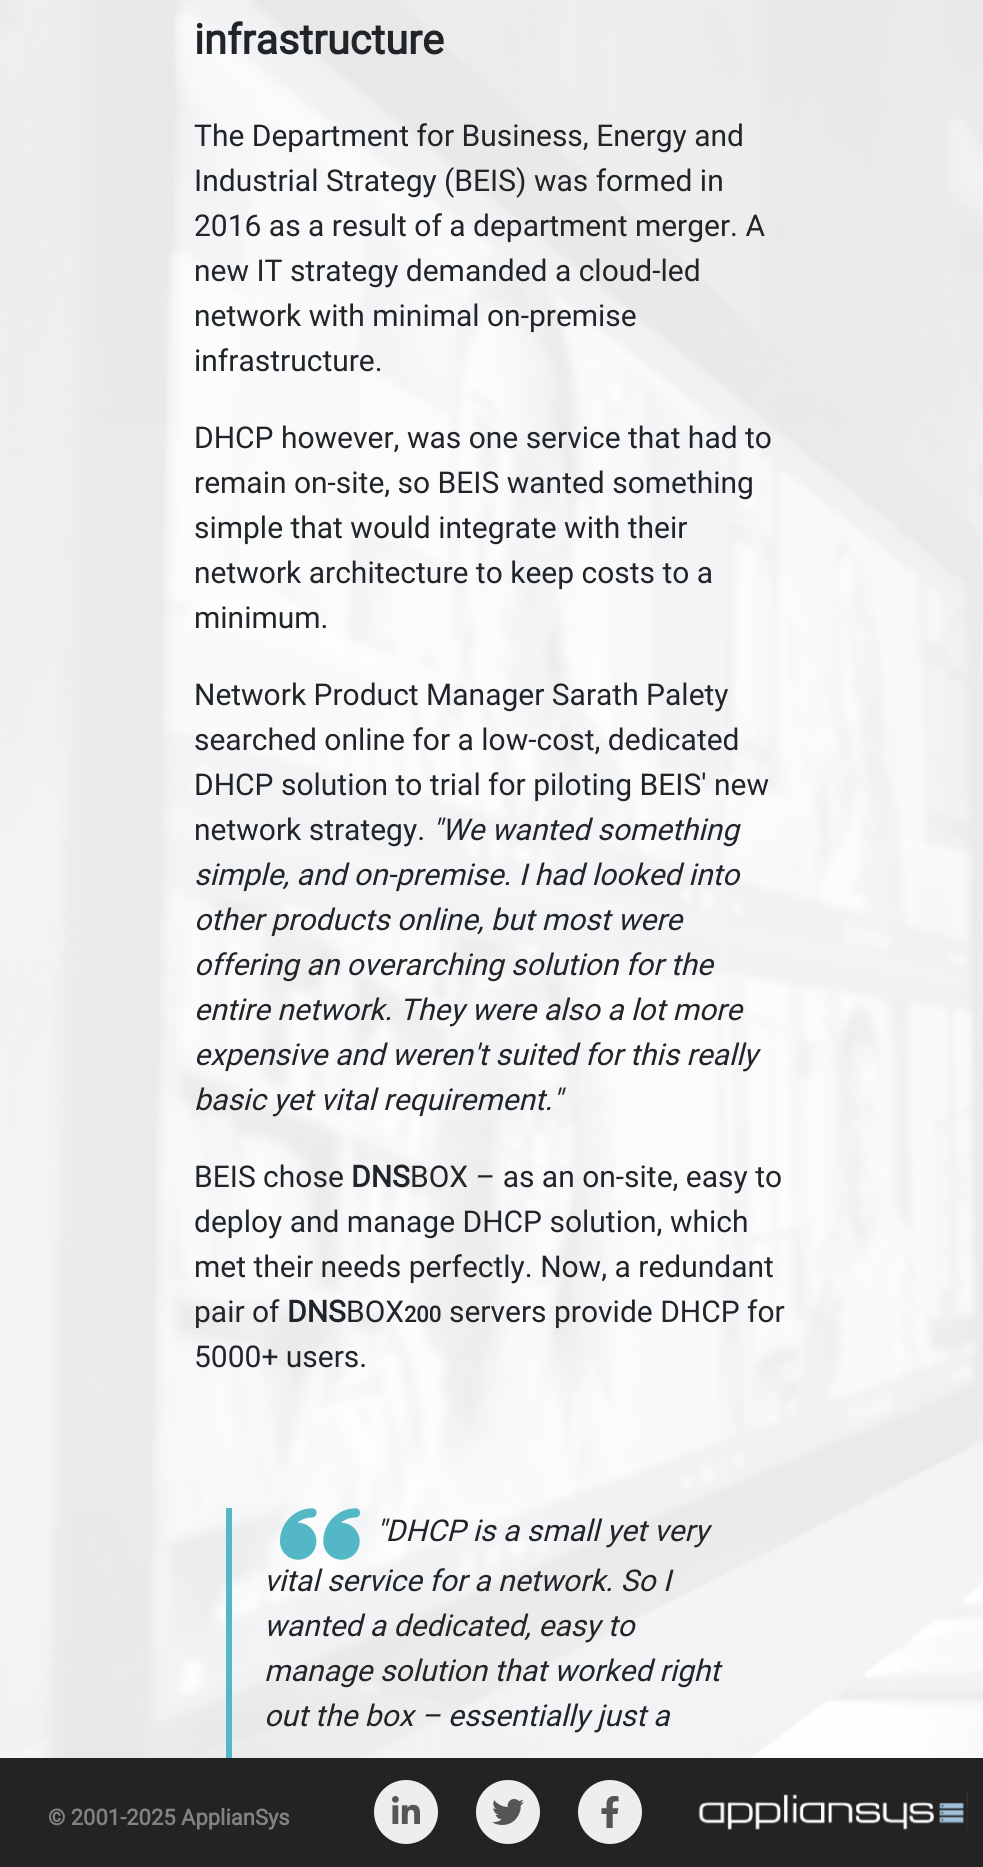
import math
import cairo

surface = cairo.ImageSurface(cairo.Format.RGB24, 983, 1867)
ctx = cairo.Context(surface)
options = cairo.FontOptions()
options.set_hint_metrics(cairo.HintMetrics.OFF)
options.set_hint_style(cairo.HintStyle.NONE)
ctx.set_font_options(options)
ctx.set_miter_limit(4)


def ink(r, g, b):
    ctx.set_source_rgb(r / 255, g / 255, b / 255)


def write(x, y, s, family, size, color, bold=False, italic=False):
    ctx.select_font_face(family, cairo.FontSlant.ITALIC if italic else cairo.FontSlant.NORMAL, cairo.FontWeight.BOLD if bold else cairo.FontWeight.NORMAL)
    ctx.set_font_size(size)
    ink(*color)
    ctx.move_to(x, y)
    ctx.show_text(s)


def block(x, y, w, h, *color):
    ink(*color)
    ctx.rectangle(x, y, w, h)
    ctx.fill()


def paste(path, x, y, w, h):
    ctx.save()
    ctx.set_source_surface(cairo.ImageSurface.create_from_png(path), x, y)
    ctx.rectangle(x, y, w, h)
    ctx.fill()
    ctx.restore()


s1 = dict(family="Roboto", size=41.5, color=(33, 37, 41), bold=True)
s2 = dict(family="Roboto", size=30, color=(33, 37, 41))
s3 = dict(family="Roboto", size=30, color=(33, 37, 41), italic=True)
s4 = dict(family="Roboto", size=30, color=(33, 37, 41), bold=True)
s5 = dict(family="Roboto", size=22, color=(33, 37, 41), bold=True)
s6 = dict(family="Roboto", size=22, color=(128, 130, 133), bold=True)

ink(255, 255, 255)
ctx.paint()
paste("pic1.png", 0, 0, 983, 1758)
write(194, 54, "infrastructure", **s1)
write(194, 146, "The Department for Business, Energy and", **s2)
write(194, 191, "Industrial Strategy (BEIS) was formed in", **s2)
write(194, 236, "2016 as a result of a department merger. A", **s2)
write(194, 281, "new IT strategy demanded a cloud-led", **s2)
write(194, 326, "network with minimal on-premise", **s2)
write(194, 371, "infrastructure.", **s2)
write(194, 448, "DHCP however, was one service that had to", **s2)
write(194, 493, "remain on-site, so BEIS wanted something", **s2)
write(194, 538, "simple that would integrate with their", **s2)
write(194, 583, "network architecture to keep costs to a", **s2)
write(194, 628, "minimum.", **s2)
write(194, 705, "Network Product Manager Sarath Palety", **s2)
write(194, 750, "searched online for a low-cost, dedicated", **s2)
write(194, 795, "DHCP solution to trial for piloting BEIS' new", **s2)
write(194, 840, "network strategy.", **s2)
write(432, 840, "\"We wanted something", **s3)
write(194, 885, "simple, and on-premise. I had looked into", **s3)
write(194, 930, "other products online, but most were", **s3)
write(194, 975, "offering an overarching solution for the", **s3)
write(194, 1020, "entire network. They were also a lot more", **s3)
write(194, 1065, "expensive and weren't suited for this really", **s3)
write(194, 1110, "basic yet vital requirement.\"", **s3)
write(194, 1187, "BEIS chose", **s2)
write(351, 1187, "DNS", **s4)
write(410, 1187, "BOX – as an on-site, easy to", **s2)
write(194, 1232, "deploy and manage DHCP solution, which", **s2)
write(194, 1277, "met their needs perfectly. Now, a redundant", **s2)
write(194, 1322, "pair of", **s2)
write(287, 1322, "DNS", **s4)
write(346, 1322, "BOX", **s2)
write(404, 1322, "200", **s5)
write(449, 1322, "servers provide DHCP for", **s2)
write(194, 1367, "5000+ users.", **s2)
block(226, 1508, 6, 250, 84, 183, 198)
paste("pic2.png", 280, 1508, 80, 52)
write(376, 1541, "\"DHCP is a small yet very", **s3)
write(264, 1591, "vital service for a network. So I", **s3)
write(264, 1636, "wanted a dedicated, easy to", **s3)
write(264, 1681, "manage solution that worked right", **s3)
write(264, 1726, "out the box – essentially just a", **s3)
block(0, 1758, 983, 109, 35, 35, 35)
write(48, 1825, "© 2001-2025 ApplianSys", **s6)
ink(238, 238, 238)
ctx.new_path()
ctx.arc(406, 1812, 32, 0, 2 * math.pi)
ctx.fill()
paste("pic3.png", 392, 1796, 28, 28)
ctx.arc(508, 1812, 32, 0, 2 * math.pi)
ctx.fill()
paste("pic4.png", 492, 1799, 32, 26)
ctx.arc(610, 1812, 32, 0, 2 * math.pi)
ctx.fill()
paste("pic5.png", 601, 1796, 18, 32)
paste("pic6.png", 698, 1790, 270, 44)
surface.write_to_png("screenshot.png")
